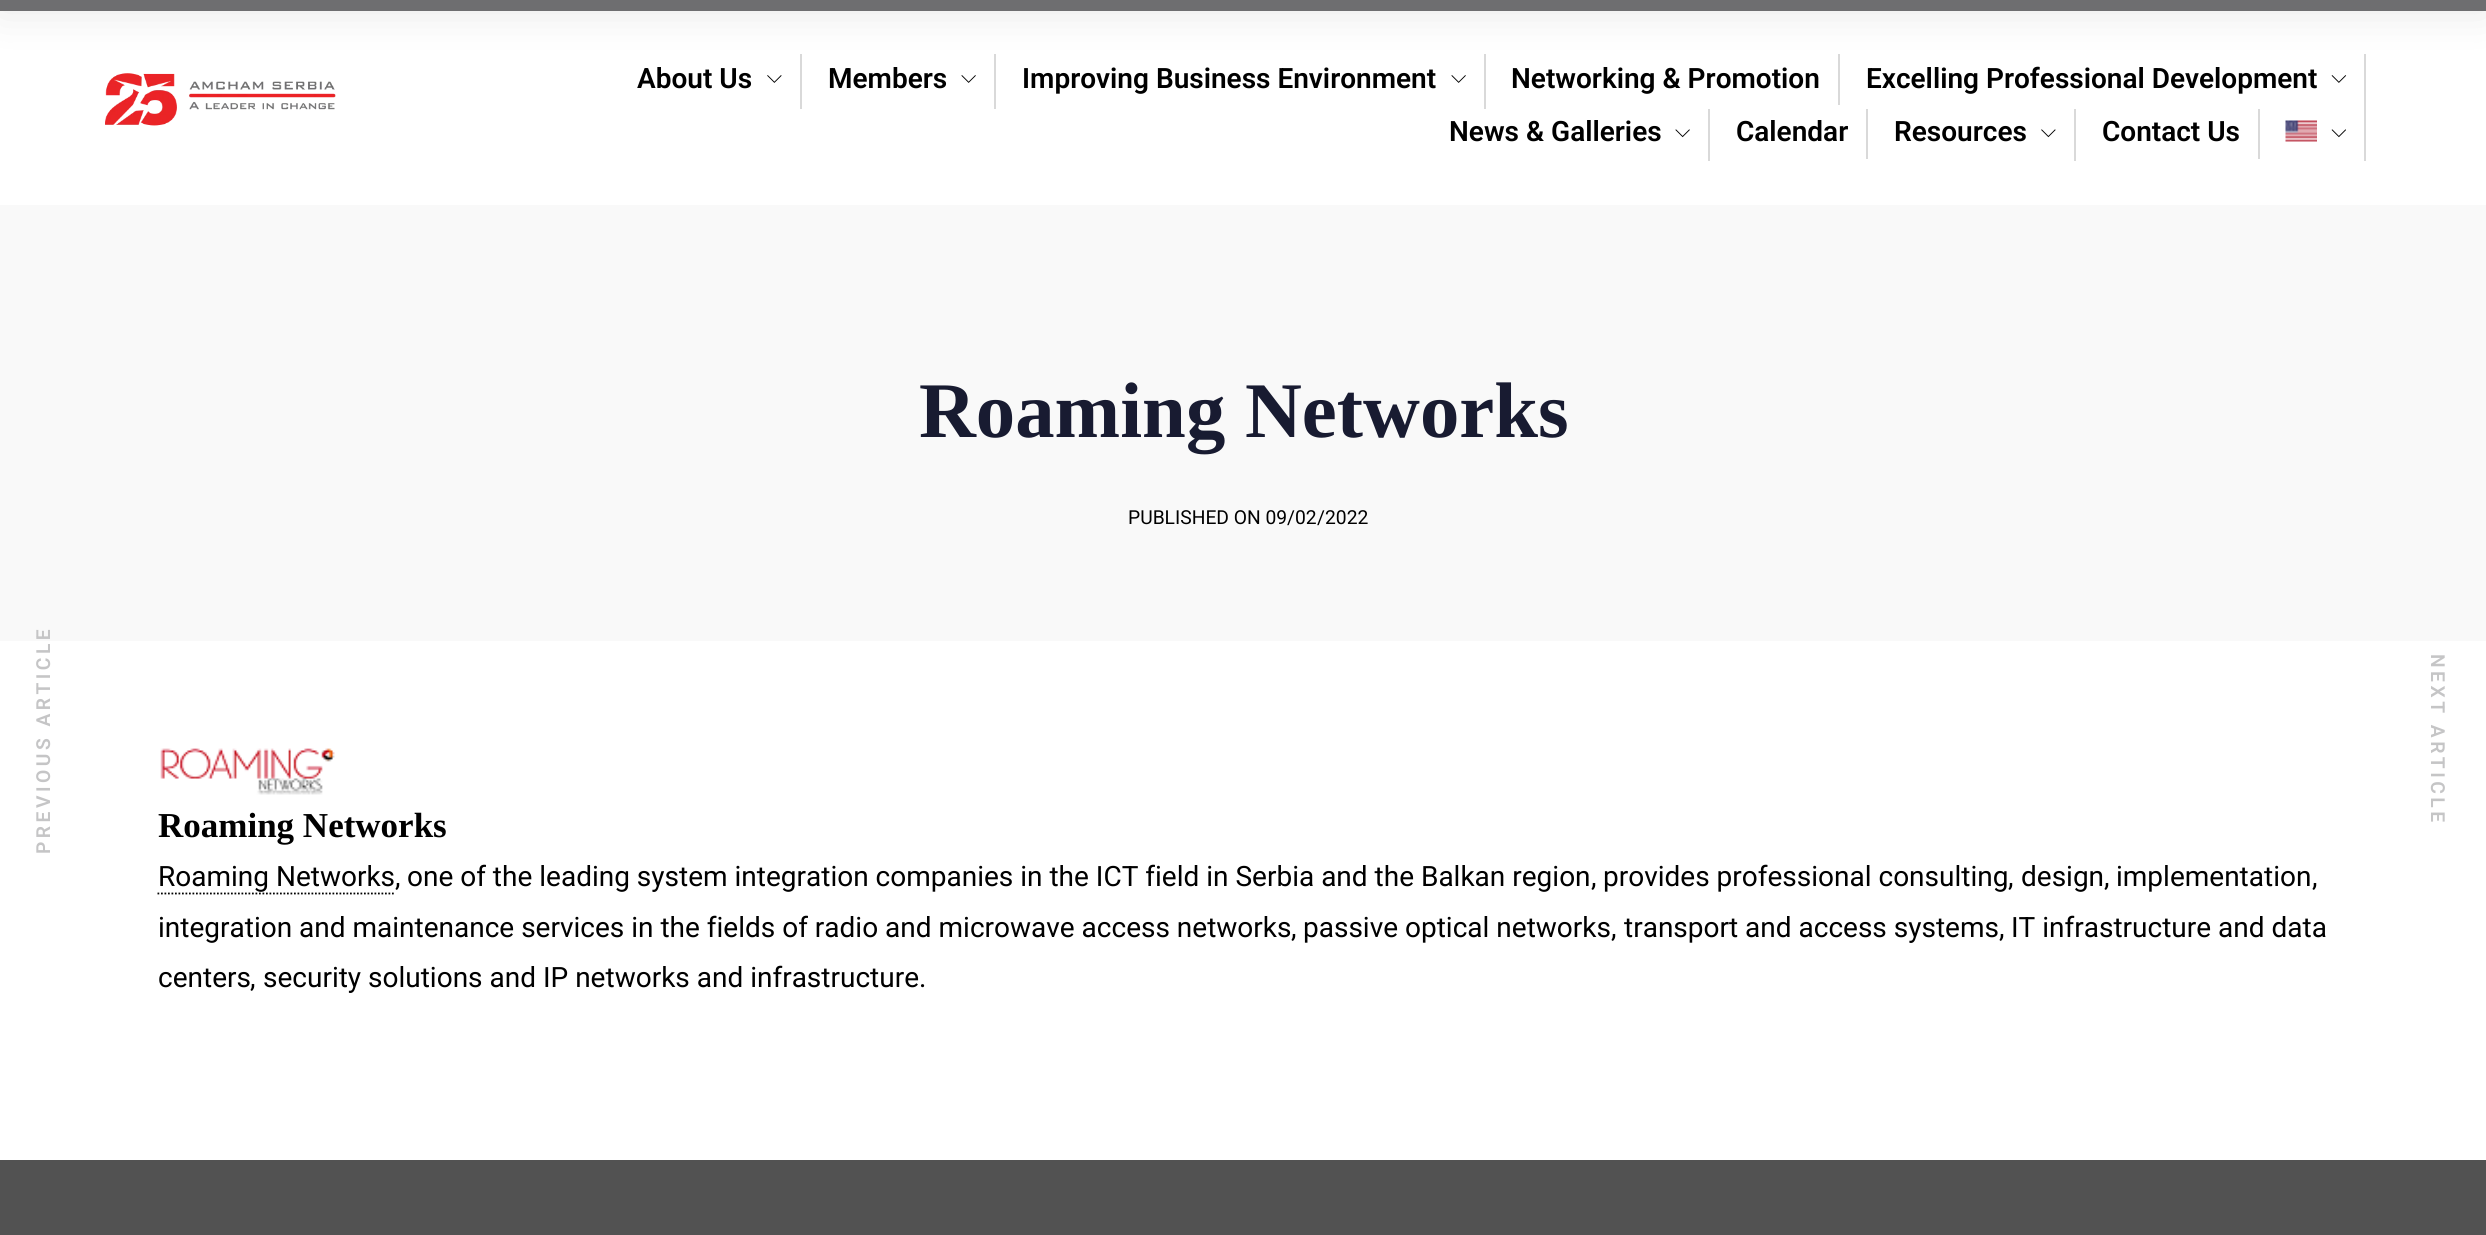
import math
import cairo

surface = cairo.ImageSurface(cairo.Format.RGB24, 2486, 1235)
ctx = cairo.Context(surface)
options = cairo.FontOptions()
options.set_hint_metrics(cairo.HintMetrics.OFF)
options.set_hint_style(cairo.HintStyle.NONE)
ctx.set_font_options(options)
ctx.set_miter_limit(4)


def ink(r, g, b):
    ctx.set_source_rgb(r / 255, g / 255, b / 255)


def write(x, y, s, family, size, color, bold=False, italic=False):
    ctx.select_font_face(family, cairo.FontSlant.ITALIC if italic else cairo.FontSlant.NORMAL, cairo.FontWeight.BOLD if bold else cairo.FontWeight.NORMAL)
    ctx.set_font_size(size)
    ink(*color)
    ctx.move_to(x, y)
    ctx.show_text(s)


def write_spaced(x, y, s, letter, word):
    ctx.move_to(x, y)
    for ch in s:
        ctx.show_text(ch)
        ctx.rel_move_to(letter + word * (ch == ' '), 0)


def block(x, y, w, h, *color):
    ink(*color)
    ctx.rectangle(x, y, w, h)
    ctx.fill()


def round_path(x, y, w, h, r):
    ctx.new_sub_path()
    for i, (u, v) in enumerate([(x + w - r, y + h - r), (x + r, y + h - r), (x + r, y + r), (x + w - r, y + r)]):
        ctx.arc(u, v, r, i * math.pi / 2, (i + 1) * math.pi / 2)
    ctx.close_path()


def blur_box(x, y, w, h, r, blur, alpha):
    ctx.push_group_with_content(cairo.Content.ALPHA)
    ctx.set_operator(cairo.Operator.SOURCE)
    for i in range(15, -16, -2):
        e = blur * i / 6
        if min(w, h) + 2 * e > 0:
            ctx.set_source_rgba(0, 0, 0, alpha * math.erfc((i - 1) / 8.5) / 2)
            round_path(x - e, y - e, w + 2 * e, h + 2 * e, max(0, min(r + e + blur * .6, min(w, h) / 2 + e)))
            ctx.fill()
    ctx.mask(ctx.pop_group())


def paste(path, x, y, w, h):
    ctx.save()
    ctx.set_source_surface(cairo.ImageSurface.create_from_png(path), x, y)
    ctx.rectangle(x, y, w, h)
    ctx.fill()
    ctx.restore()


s1 = dict(family="Roboto SemiBold", size=28, color=(0, 0, 0))
s2 = dict(family="Liberation Serif", size=78.75, color=(24, 27, 49), bold=True)
s3 = dict(family="Roboto", size=19.25, color=(0, 0, 0))
s4 = dict(family="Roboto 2", size=19.25, color=(0, 0, 0))
s5 = dict(family="Liberation Serif", size=35, color=(0, 0, 0), bold=True)
s6 = dict(family="Roboto", size=28, color=(0, 0, 0))
s7 = dict(family="Roboto 2", size=28, color=(0, 0, 0))

ink(255, 255, 255)
ctx.paint()
paste("pic1.png", 105, 73, 231, 53)
block(800, 54, 2, 55, 217, 217, 217)
block(994, 54, 2, 55, 217, 217, 217)
block(1484, 54, 2, 55, 217, 217, 217)
block(1838, 54, 2, 51, 217, 217, 217)
block(2364, 54, 2, 107, 217, 217, 217)
ink(0, 0, 0)
blur_box(0, -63, 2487, 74, 0, 21, 0.1)
block(0, 0, 2486, 11, 110, 110, 112)
write(637, 88, "About Us", **s1)
paste("pic2.png", 767, 75, 15, 8)
write(828, 88, "Members", **s1)
paste("pic3.png", 961, 75, 15, 8)
write(1022, 88, "Improving Business Environment", **s1)
paste("pic3.png", 1451, 75, 15, 8)
write(1511, 88, "Networking & Promotion", **s1)
write(1866, 88, "Excelling Professional Development", **s1)
paste("pic4.png", 2331, 75, 16, 8)
block(1708, 109, 2, 52, 217, 217, 217)
write(1449, 141, "News & Galleries", **s1)
paste("pic5.png", 1675, 129, 15, 9)
block(1866, 109, 2, 50, 217, 217, 217)
write(1736, 141, "Calendar", **s1)
block(2074, 109, 2, 52, 217, 217, 217)
write(1894, 141, "Resources", **s1)
paste("pic6.png", 2041, 129, 15, 9)
block(2258, 109, 2, 50, 217, 217, 217)
write(2102, 141, "Contact Us", **s1)
paste("pic7.png", 2285, 120, 32, 22)
paste("pic8.png", 2331, 129, 15, 9)
block(0, 205, 2486, 436, 249, 249, 249)
write(919, 437, "Roaming Networks", **s2)
write(1128, 524, "PUBLISHED ON 09", **s3)
write(1287, 524, "/", **s4)
write(1295, 524, "02", **s3)
write(1317, 524, "/", **s4)
write(1325, 524, "2022", **s3)
ctx.select_font_face("Roboto SemiBold")
ink(197, 197, 198)
ctx.save()
ctx.translate(50, 854)
ctx.rotate(-90 * math.pi / 180)
write_spaced(0, 0, "PREVIOUS ARTICLE", 3.5, 0)
ctx.restore()
ctx.save()
ctx.translate(2431, 654)
ctx.rotate(90 * math.pi / 180)
write_spaced(0, 0, "NEXT ARTICLE", 3.5, 0)
ctx.restore()
paste("pic9.png", 160, 748, 175, 47)
write(158, 837, "Roaming Networks", **s5)
write(158, 886, "Roaming Networks", **s6)
ctx.new_path()
ctx.move_to(157.5, 893.5)
ctx.line_to(394, 893.5)
ctx.set_line_width(1.8)
ctx.set_dash([1.75, 1.75])
ctx.stroke()
write(395, 886, ",", **s7)
write(407, 886, "one of the leading system integration companies in the ICT field in Serbia and the Balkan region", **s6)
write(1591, 886, ",", **s7)
write(1603, 886, "provides professional consulting", **s6)
write(2008, 886, ",", **s7)
write(2021, 886, "design", **s6)
write(2104, 886, ",", **s7)
write(2116, 886, "implementation", **s6)
write(2312, 886, ",", **s7)
write(158, 937, "integration and maintenance services in the fields of radio and microwave access networks", **s6)
write(1291, 937, ",", **s7)
write(1303, 937, "passive optical networks", **s6)
write(1611, 937, ",", **s7)
write(1624, 937, "transport and access systems", **s6)
write(1999, 937, ",", **s7)
write(2011, 937, "IT infrastructure and data", **s6)
write(158, 987, "centers", **s6)
write(250, 987, ",", **s7)
write(263, 987, "security solutions and IP networks and infrastructure", **s6)
write(919, 987, ".", **s7)
block(0, 1160, 2486, 75, 82, 82, 82)
surface.write_to_png("screenshot.png")
